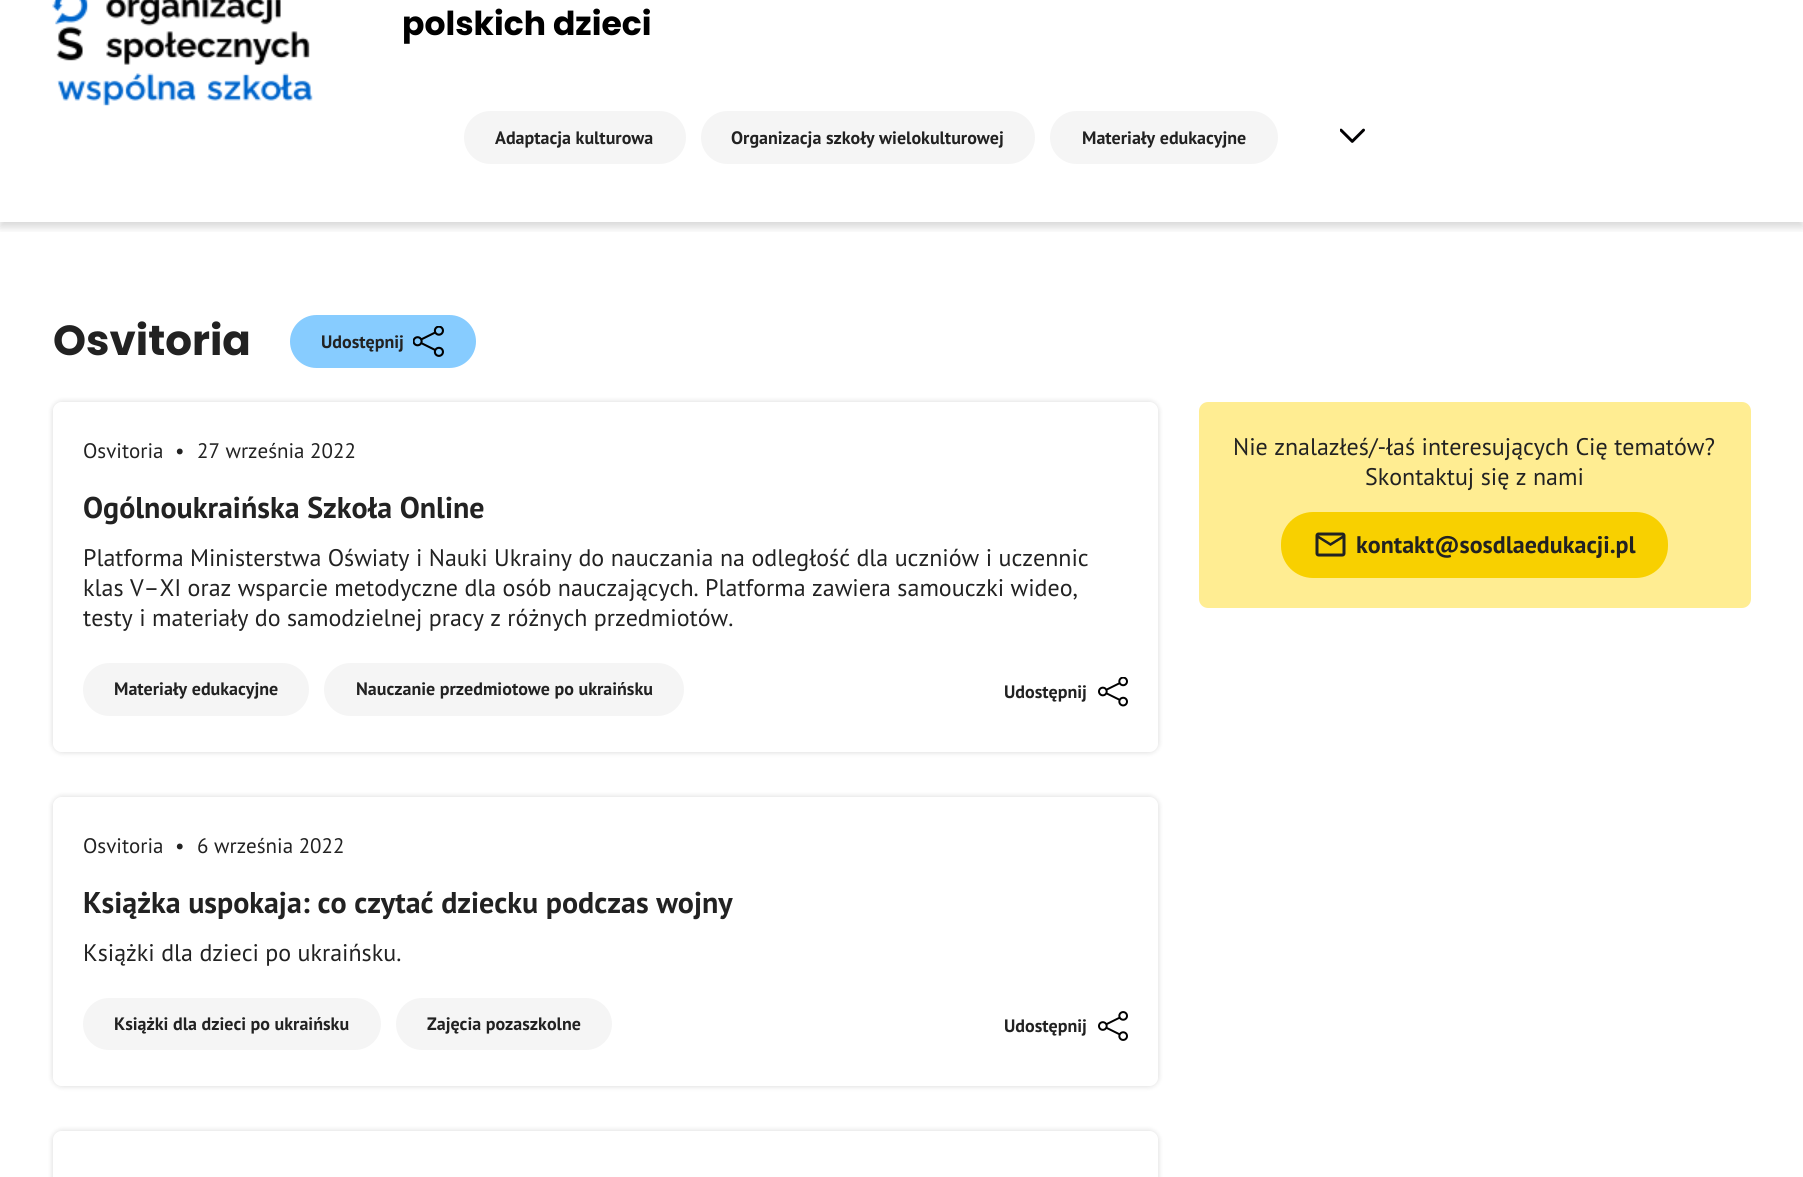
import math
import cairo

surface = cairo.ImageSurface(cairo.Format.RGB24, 1803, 1177)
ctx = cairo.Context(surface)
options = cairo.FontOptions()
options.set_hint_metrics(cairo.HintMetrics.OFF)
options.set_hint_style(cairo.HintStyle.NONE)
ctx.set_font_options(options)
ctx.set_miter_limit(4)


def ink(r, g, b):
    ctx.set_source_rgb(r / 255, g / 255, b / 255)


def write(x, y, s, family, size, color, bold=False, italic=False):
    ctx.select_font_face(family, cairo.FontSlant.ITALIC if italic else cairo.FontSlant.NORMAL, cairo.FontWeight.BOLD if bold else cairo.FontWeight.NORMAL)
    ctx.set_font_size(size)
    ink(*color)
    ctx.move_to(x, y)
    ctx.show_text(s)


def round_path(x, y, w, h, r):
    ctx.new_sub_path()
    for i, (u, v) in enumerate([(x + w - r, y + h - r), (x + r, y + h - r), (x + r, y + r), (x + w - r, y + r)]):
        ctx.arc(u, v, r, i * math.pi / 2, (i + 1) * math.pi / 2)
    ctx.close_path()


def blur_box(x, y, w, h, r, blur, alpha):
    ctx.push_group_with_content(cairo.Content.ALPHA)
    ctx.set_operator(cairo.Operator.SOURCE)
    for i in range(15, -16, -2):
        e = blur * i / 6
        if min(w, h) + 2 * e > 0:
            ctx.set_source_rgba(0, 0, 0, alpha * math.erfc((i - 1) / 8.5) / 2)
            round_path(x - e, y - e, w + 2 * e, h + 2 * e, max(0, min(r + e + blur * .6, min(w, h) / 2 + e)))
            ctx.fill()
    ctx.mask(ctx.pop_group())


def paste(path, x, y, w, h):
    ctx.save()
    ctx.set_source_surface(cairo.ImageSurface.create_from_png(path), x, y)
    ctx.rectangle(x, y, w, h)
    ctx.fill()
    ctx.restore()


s1 = dict(family="Poppins", size=33, color=(0, 0, 0), bold=True)
s2 = dict(family="PT Sans", size=18, color=(34, 34, 34), bold=True)
s3 = dict(family="Poppins", size=42, color=(34, 34, 34), bold=True)
s4 = dict(family="PT Sans", size=21, color=(34, 34, 34))
s5 = dict(family="PT Sans", size=30, color=(34, 34, 34), bold=True)
s6 = dict(family="PT Sans", size=24, color=(34, 34, 34))
s7 = dict(family="PT Sans", size=24, color=(34, 34, 34), bold=True)

ink(255, 255, 255)
ctx.paint()
ctx.save()
ctx.rectangle(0, 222, 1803, 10)
ctx.clip()
ink(0, 0, 0)
blur_box(0, -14, 1803, 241, 0, 4.5, 0.16)
ctx.restore()
paste("pic1.png", 52, 0, 261, 106)
write(402, 35, "polskich dzieci", **s1)
ink(245, 245, 245)
round_path(465.5, 112.5, 219, 50, 25)
ctx.fill_preserve()
ctx.set_line_width(3)
ctx.stroke()
write(495, 144, "Adaptacja kulturowa", **s2)
ink(245, 245, 245)
round_path(702.5, 112.5, 331, 50, 25)
ctx.fill_preserve()
ctx.stroke()
write(731, 144, "Organizacja szkoły wielokulturowej", **s2)
ink(245, 245, 245)
round_path(1051.5, 112.5, 225, 50, 25)
ctx.fill_preserve()
ctx.stroke()
write(1082, 144, "Materiały edukacyjne", **s2)
paste("pic2.png", 1340, 128, 25, 15)
write(53, 355, "Osvitoria", **s3)
ink(135, 204, 255)
round_path(291.5, 316.5, 183, 50, 25)
ctx.fill_preserve()
ctx.stroke()
write(321, 348, "Udostępnij", **s2)
paste("pic3.png", 413, 326, 31, 31)
ctx.save()
ctx.set_fill_rule(cairo.FillRule.EVEN_ODD)
ctx.new_path()
ctx.move_to(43, 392)
ctx.line_to(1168, 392)
ctx.line_to(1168, 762)
ctx.line_to(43, 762)
ctx.close_path()
ctx.move_to(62, 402)
ctx.line_to(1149, 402)
ctx.curve_to(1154, 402, 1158, 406, 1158, 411)
ctx.line_to(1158, 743)
ctx.curve_to(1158, 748, 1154, 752, 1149, 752)
ctx.line_to(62, 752)
ctx.curve_to(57, 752, 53, 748, 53, 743)
ctx.line_to(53, 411)
ctx.curve_to(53, 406, 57, 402, 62, 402)
ctx.close_path()
ctx.clip()
ink(0, 0, 0)
blur_box(53, 402, 1105, 350, 9, 3, 0.16)
ctx.restore()
write(83, 458, "Osvitoria", **s4)
write(175, 458, "•", **s4)
write(197, 458, "27 września 2022", **s4)
write(83, 518, "Ogólnoukraińska Szkoła Online", **s5)
write(83, 566, "Platforma Ministerstwa Oświaty i Nauki Ukrainy do nauczania na odległość dla uczniów i uczennic", **s6)
write(83, 596, "klas V–XI oraz wsparcie metodyczne dla osób nauczających. Platforma zawiera samouczki wideo,", **s6)
write(83, 626, "testy i materiały do samodzielnej pracy z różnych przedmiotów.", **s6)
ink(245, 245, 245)
round_path(84.5, 664.5, 223, 50, 25)
ctx.fill_preserve()
ctx.stroke()
write(114, 695, "Materiały edukacyjne", **s2)
ink(245, 245, 245)
round_path(325.5, 664.5, 357, 50, 25)
ctx.fill_preserve()
ctx.stroke()
write(356, 695, "Nauczanie przedmiotowe po ukraińsku", **s2)
write(1004, 698, "Udostępnij", **s2)
paste("pic4.png", 1098, 677, 30, 30)
ctx.save()
ctx.set_fill_rule(cairo.FillRule.EVEN_ODD)
ctx.new_path()
ctx.move_to(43, 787)
ctx.line_to(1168, 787)
ctx.line_to(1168, 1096)
ctx.line_to(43, 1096)
ctx.close_path()
ctx.move_to(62, 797)
ctx.line_to(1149, 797)
ctx.curve_to(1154, 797, 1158, 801, 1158, 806)
ctx.line_to(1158, 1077)
ctx.curve_to(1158, 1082, 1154, 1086, 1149, 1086)
ctx.line_to(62, 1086)
ctx.curve_to(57, 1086, 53, 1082, 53, 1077)
ctx.line_to(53, 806)
ctx.curve_to(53, 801, 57, 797, 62, 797)
ctx.close_path()
ctx.clip()
ink(0, 0, 0)
blur_box(53, 797, 1105, 289, 9, 3, 0.16)
ctx.restore()
write(83, 853, "Osvitoria", **s4)
write(175, 853, "•", **s4)
write(197, 853, "6 września 2022", **s4)
write(83, 913, "Książka uspokaja: co czytać dziecku podczas wojny", **s5)
write(83, 961, "Książki dla dzieci po ukraińsku.", **s6)
ink(245, 245, 245)
round_path(83, 998, 298, 52, 26)
ctx.fill()
write(114, 1030, "Książki dla dzieci po ukraińsku", **s2)
ink(245, 245, 245)
round_path(396, 998, 216, 52, 26)
ctx.fill()
write(427, 1030, "Zajęcia pozaszkolne", **s2)
write(1004, 1032, "Udostępnij", **s2)
paste("pic5.png", 1098, 1011, 30, 30)
ctx.save()
ctx.set_fill_rule(cairo.FillRule.EVEN_ODD)
ctx.new_path()
ctx.move_to(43, 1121)
ctx.line_to(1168, 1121)
ctx.line_to(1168, 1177)
ctx.line_to(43, 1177)
ctx.close_path()
ctx.move_to(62, 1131)
ctx.line_to(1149, 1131)
ctx.curve_to(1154, 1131, 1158, 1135, 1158, 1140)
ctx.line_to(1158, 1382)
ctx.curve_to(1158, 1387, 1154, 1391, 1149, 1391)
ctx.line_to(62, 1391)
ctx.curve_to(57, 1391, 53, 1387, 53, 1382)
ctx.line_to(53, 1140)
ctx.curve_to(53, 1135, 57, 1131, 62, 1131)
ctx.close_path()
ctx.clip()
ink(0, 0, 0)
blur_box(53, 1131, 1105, 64, 9, 3, 0.16)
ctx.restore()
ink(255, 237, 146)
round_path(1199, 402, 552, 206, 9)
ctx.fill()
write(1233, 455, "Nie znalazłeś/-łaś interesujących Cię tematów?", **s6)
write(1365, 485, "Skontaktuj się z nami", **s6)
ink(248, 208, 0)
round_path(1282.5, 513.5, 384, 63, 30.5)
ctx.fill_preserve()
ctx.stroke()
paste("pic6.png", 1315, 532, 31, 25)
write(1356, 553, "kontakt@sosdlaedukacji.pl", **s7)
surface.write_to_png("screenshot.png")
